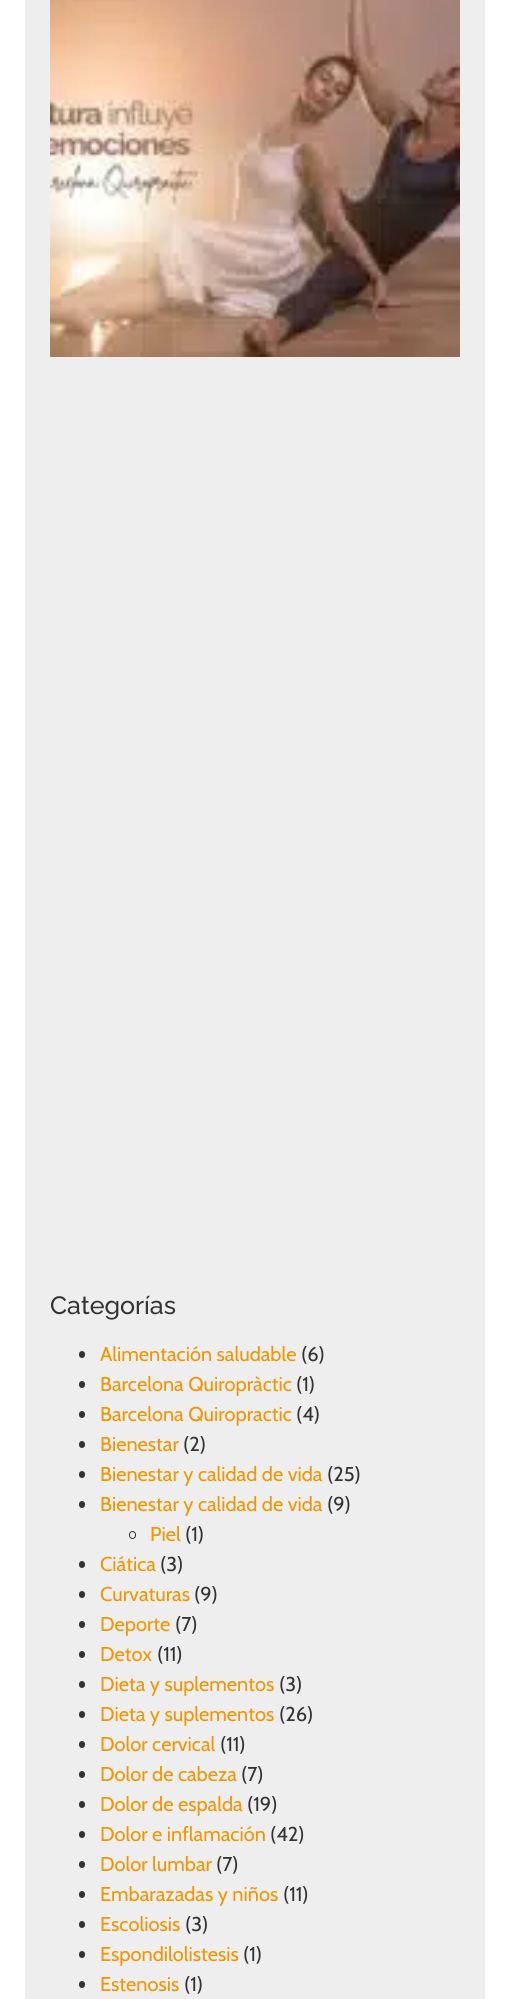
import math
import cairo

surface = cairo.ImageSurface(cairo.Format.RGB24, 509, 1999)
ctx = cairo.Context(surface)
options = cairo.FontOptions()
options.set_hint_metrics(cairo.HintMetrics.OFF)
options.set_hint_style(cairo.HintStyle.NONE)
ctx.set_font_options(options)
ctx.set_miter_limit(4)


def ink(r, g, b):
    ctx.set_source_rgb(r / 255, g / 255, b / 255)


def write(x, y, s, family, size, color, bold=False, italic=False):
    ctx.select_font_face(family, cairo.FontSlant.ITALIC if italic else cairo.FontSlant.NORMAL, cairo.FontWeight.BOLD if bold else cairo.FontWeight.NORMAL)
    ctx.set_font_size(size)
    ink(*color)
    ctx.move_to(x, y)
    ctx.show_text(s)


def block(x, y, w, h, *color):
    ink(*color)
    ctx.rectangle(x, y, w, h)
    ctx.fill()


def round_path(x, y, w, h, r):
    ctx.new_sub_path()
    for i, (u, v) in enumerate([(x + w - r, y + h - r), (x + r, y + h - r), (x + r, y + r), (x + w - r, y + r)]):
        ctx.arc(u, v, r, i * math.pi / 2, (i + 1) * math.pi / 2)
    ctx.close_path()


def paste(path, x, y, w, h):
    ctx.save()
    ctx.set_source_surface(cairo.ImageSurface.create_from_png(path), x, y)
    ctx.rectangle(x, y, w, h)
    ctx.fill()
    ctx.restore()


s1 = dict(family="Raleway Medium", size=25, color=(51, 51, 51))
s2 = dict(family="Cabin", size=20, color=(243, 148, 0))
s3 = dict(family="Cabin", size=20, color=(51, 51, 51))

ink(255, 255, 255)
ctx.paint()
block(25, 0, 460, 1999, 238, 238, 238)
paste("pic1.png", 50, 0, 410, 357)
write(50, 1314, "Categorías", **s1)
round_path(79, 1351, 6, 7, 3)
ctx.fill()
write(100, 1361, "Alimentación saludable", **s2)
write(301, 1361, "(6)", **s3)
round_path(79, 1381, 6, 7, 3)
ctx.fill()
write(100, 1391, "Barcelona Quiropràctic", **s2)
write(296, 1391, "(1)", **s3)
round_path(79, 1411, 6, 7, 3)
ctx.fill()
write(100, 1421, "Barcelona Quiropractic", **s2)
write(296, 1421, "(4)", **s3)
round_path(79, 1441, 6, 7, 3)
ctx.fill()
write(100, 1451, "Bienestar", **s2)
write(183, 1451, "(2)", **s3)
round_path(79, 1471, 6, 7, 3)
ctx.fill()
write(100, 1481, "Bienestar y calidad de vida", **s2)
write(327, 1481, "(25)", **s3)
round_path(79, 1501, 6, 7, 3)
ctx.fill()
write(100, 1511, "Bienestar y calidad de vida", **s2)
write(327, 1511, "(9)", **s3)
round_path(129.5, 1531.5, 6, 7, 3)
ctx.set_line_width(1)
ctx.stroke()
write(150, 1541, "Piel", **s2)
write(185, 1541, "(1)", **s3)
round_path(79, 1561, 6, 7, 3)
ctx.fill()
write(100, 1571, "Ciática", **s2)
write(160, 1571, "(3)", **s3)
round_path(79, 1591, 6, 7, 3)
ctx.fill()
write(100, 1601, "Curvaturas", **s2)
write(194, 1601, "(9)", **s3)
round_path(79, 1621, 6, 7, 3)
ctx.fill()
write(100, 1631, "Deporte", **s2)
write(175, 1631, "(7)", **s3)
round_path(79, 1651, 6, 7, 3)
ctx.fill()
write(100, 1661, "Detox", **s2)
write(157, 1661, "(11)", **s3)
round_path(79, 1681, 6, 7, 3)
ctx.fill()
write(100, 1691, "Dieta y suplementos", **s2)
write(279, 1691, "(3)", **s3)
round_path(79, 1711, 6, 7, 3)
ctx.fill()
write(100, 1721, "Dieta y suplementos", **s2)
write(279, 1721, "(26)", **s3)
round_path(79, 1741, 6, 7, 3)
ctx.fill()
write(100, 1751, "Dolor cervical", **s2)
write(220, 1751, "(11)", **s3)
round_path(79, 1771, 6, 7, 3)
ctx.fill()
write(100, 1781, "Dolor de cabeza", **s2)
write(241, 1781, "(7)", **s3)
round_path(79, 1801, 6, 7, 3)
ctx.fill()
write(100, 1811, "Dolor de espalda", **s2)
write(247, 1811, "(19)", **s3)
round_path(79, 1831, 6, 7, 3)
ctx.fill()
write(100, 1841, "Dolor e inflamación", **s2)
write(270, 1841, "(42)", **s3)
round_path(79, 1861, 6, 7, 3)
ctx.fill()
write(100, 1871, "Dolor lumbar", **s2)
write(216, 1871, "(7)", **s3)
round_path(79, 1891, 6, 7, 3)
ctx.fill()
write(100, 1901, "Embarazadas y niños", **s2)
write(283, 1901, "(11)", **s3)
round_path(79, 1921, 6, 7, 3)
ctx.fill()
write(100, 1931, "Escoliosis", **s2)
write(185, 1931, "(3)", **s3)
round_path(79, 1951, 6, 7, 3)
ctx.fill()
write(100, 1961, "Espondilolistesis", **s2)
write(243, 1961, "(1)", **s3)
round_path(79, 1981, 6, 7, 3)
ctx.fill()
write(100, 1991, "Estenosis", **s2)
write(184, 1991, "(1)", **s3)
surface.write_to_png("screenshot.png")
